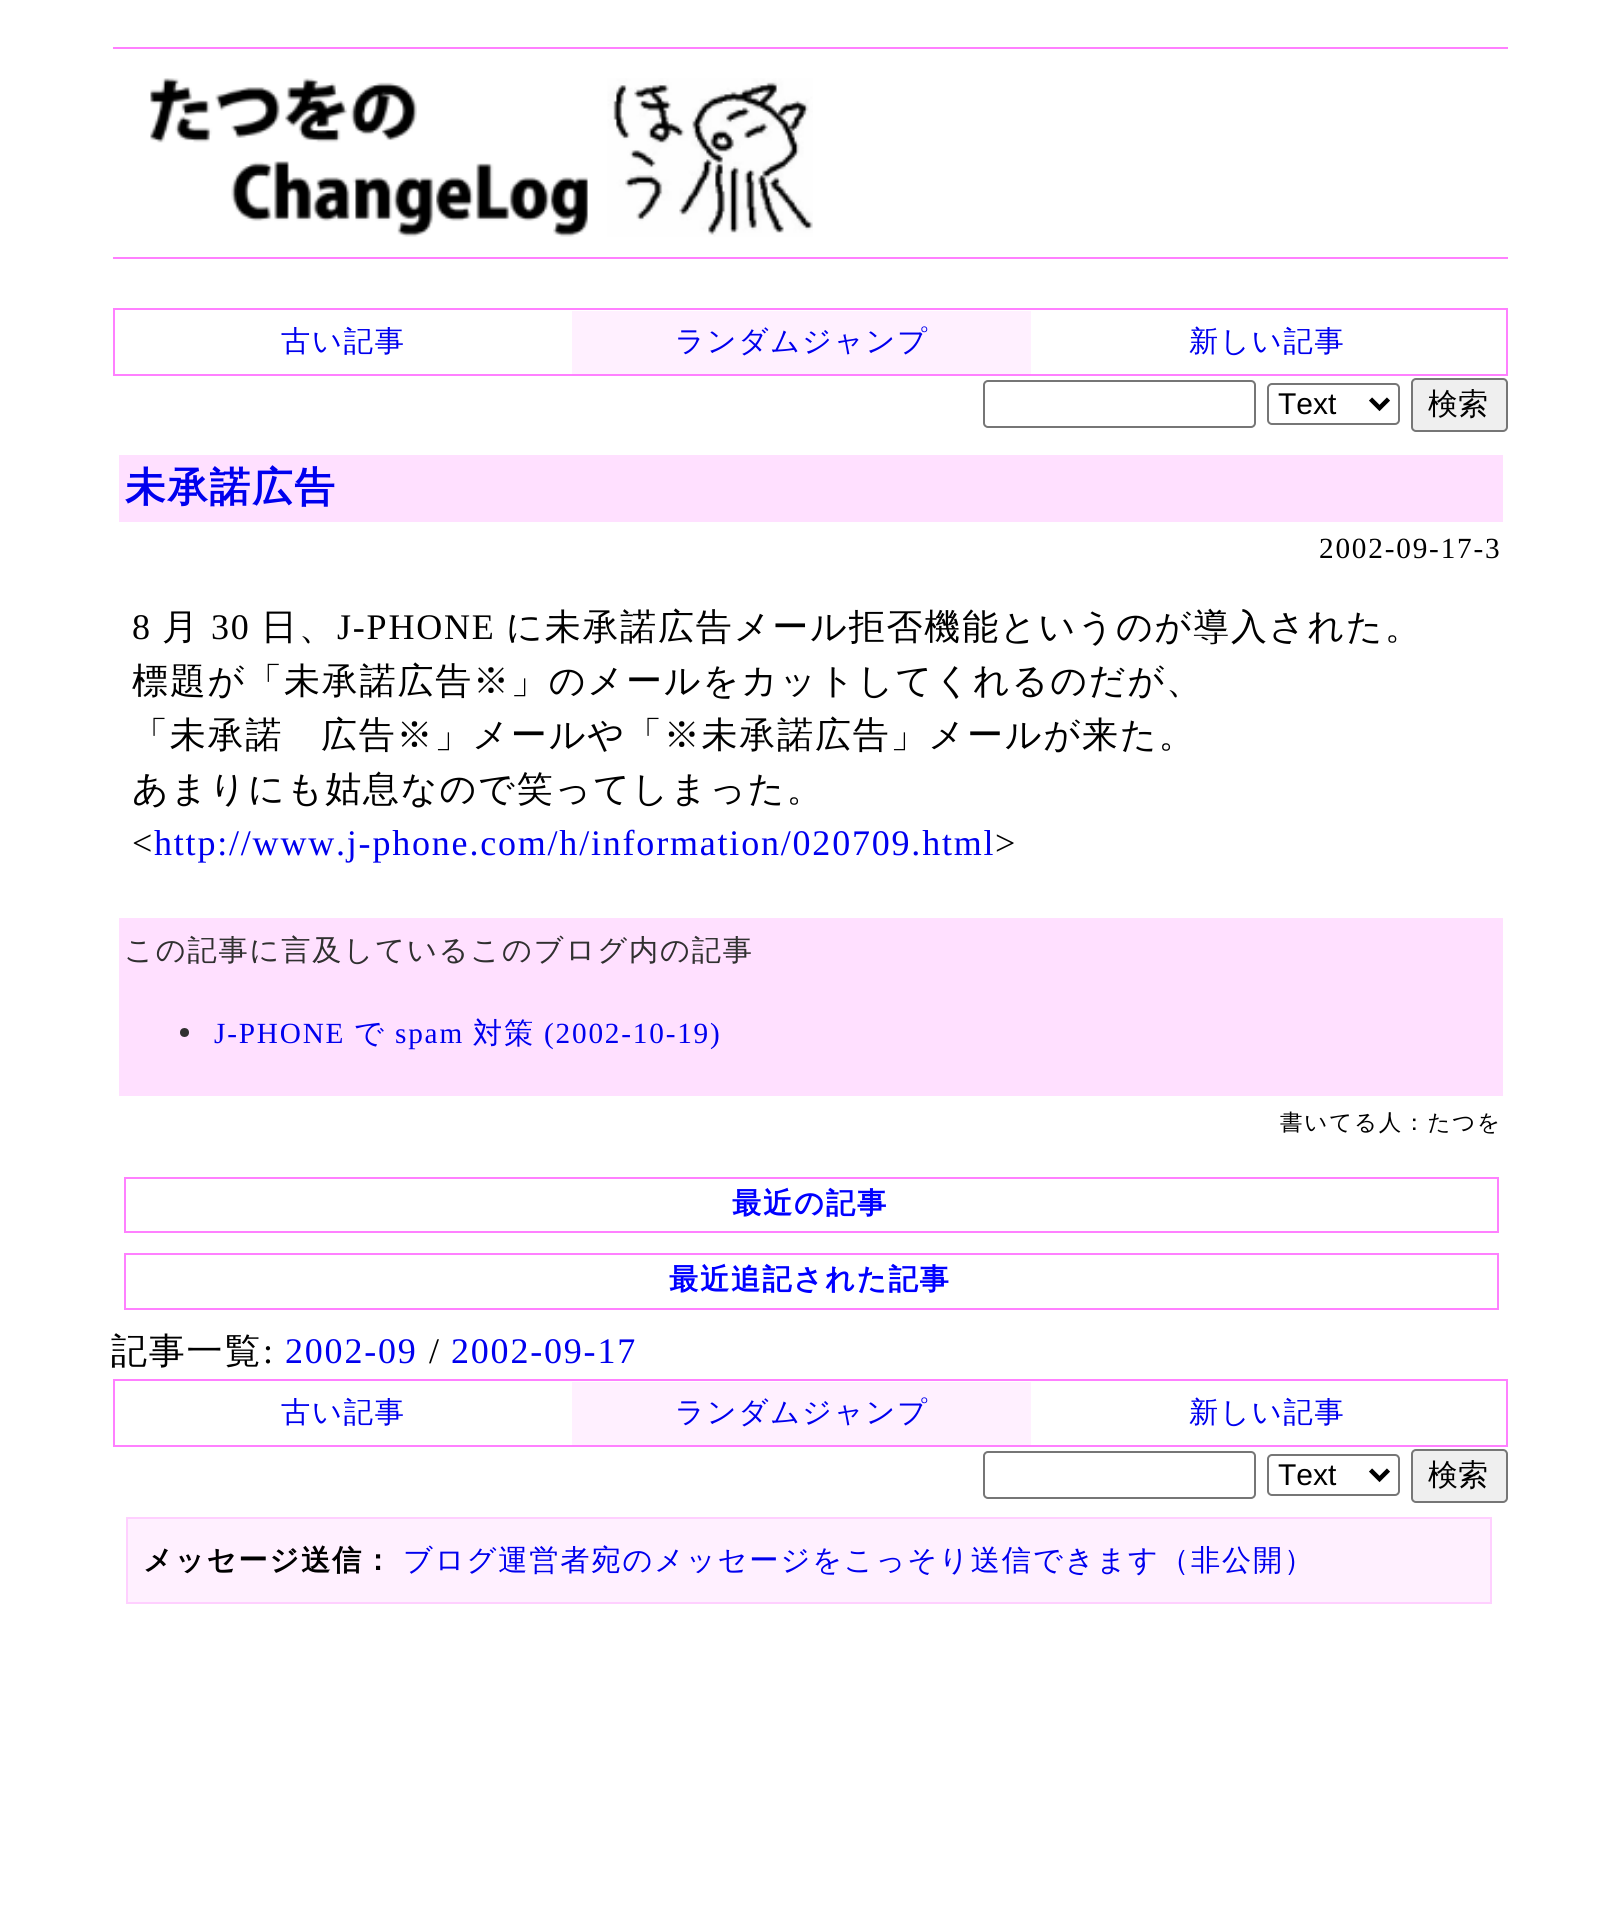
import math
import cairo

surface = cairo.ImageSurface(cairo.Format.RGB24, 1616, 1915)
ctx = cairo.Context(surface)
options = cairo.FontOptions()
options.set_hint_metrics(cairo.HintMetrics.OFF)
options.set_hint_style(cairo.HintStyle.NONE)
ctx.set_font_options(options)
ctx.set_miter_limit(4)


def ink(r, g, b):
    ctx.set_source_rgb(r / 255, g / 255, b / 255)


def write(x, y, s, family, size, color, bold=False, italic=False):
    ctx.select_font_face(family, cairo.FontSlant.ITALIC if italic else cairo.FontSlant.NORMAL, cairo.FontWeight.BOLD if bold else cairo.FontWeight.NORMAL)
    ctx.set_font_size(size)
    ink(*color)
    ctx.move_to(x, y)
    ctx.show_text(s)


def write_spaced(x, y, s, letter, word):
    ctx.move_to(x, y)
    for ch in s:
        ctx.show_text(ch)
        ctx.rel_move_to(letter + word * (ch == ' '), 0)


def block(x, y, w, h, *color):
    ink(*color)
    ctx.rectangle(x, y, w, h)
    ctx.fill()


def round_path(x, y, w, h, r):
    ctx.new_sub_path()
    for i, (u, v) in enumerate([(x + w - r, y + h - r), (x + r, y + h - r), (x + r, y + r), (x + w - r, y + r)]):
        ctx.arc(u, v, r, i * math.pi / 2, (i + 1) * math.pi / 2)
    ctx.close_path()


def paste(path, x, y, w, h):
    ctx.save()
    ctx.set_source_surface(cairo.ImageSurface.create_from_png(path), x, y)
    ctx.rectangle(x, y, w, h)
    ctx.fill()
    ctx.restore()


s1 = dict(family="Liberation Sans", size=30, color=(0, 0, 0))
s2 = dict(family="WenQuanYi Zen Hei Medium", size=30, color=(0, 0, 0))

ink(255, 255, 255)
ctx.paint()
block(113, 47, 1395, 2, 255, 128, 255)
block(113, 257, 1395, 2, 255, 128, 255)
paste("pic1.png", 150, 78, 663, 159)
ctx.rectangle(114, 309, 1393, 66)
ctx.stroke()
ctx.select_font_face("WenQuanYi Zen Hei Medium")
ctx.set_font_size(29.25)
ink(0, 0, 238)
write_spaced(281, 351, "古い記事", 1.8, 0)
block(572, 311, 459, 63, 255, 240, 255)
ink(0, 0, 238)
write_spaced(675, 351, "ランダムジャンプ", 1.8, 0)
write_spaced(1189, 351, "新しい記事", 1.8, 0)
round_path(984, 381, 271, 46, 4)
ink(118, 118, 118)
ctx.stroke()
round_path(1268, 384, 131, 40, 4)
ctx.stroke()
ctx.new_path()
ctx.move_to(1370.5, 399)
ctx.line_to(1379.5, 408)
ctx.line_to(1388.5, 399)
ink(0, 0, 0)
ctx.set_line_width(4.5)
ctx.stroke()
write(1278, 414, "Text", **s1)
ink(239, 239, 239)
round_path(1412, 379, 95, 52, 4)
ctx.fill_preserve()
ink(118, 118, 118)
ctx.set_line_width(2)
ctx.stroke()
write(1428, 414, "検索", **s2)
block(119, 455, 1384, 67, 255, 224, 255)
ctx.select_font_face("WenQuanYi Zen Hei", cairo.FontSlant.NORMAL, cairo.FontWeight.BOLD)
ctx.set_font_size(40.5)
ink(0, 0, 238)
write_spaced(125, 501, "未承諾広告", 1.8, 0)
ctx.select_font_face("Liberation Serif")
ctx.set_font_size(29.25)
ink(0, 0, 0)
write_spaced(1319, 558, "2002-09-17-3", 1.8, 0)
ctx.set_font_size(36)
write_spaced(132, 639, "8", 1.8, 0)
ctx.select_font_face("WenQuanYi Zen Hei Medium")
write_spaced(162, 639, "月", 1.8, 0)
ctx.select_font_face("Liberation Serif")
write_spaced(211, 639, "30", 1.8, 0)
ctx.select_font_face("WenQuanYi Zen Hei Medium")
write_spaced(261, 639, "日、", 1.8, 0)
ctx.select_font_face("Liberation Serif")
write_spaced(337, 639, "J-PHONE", 1.8, 0)
ctx.select_font_face("WenQuanYi Zen Hei Medium")
write_spaced(506, 639, "に未承諾広告メール拒否機能というのが導入された。", 1.8, 0)
write_spaced(132, 693, "標題が「未承諾広告※」のメールをカットしてくれるのだが、", 1.8, 0)
write_spaced(132, 747, "「未承諾　広告※」メールや「※未承諾広告」メールが来た。", 1.8, 0)
write_spaced(132, 801, "あまりにも姑息なので笑ってしまった。", 1.8, 0)
ctx.select_font_face("Liberation Serif")
write_spaced(132, 855, "<", 1.8, 0)
ink(0, 0, 238)
write_spaced(154, 855, "http://www.j-phone.com/h/information/020709.html", 1.8, 0)
ink(0, 0, 0)
write_spaced(995, 855, ">", 1.8, 0)
block(119, 918, 1384, 178, 255, 224, 255)
ctx.select_font_face("WenQuanYi Zen Hei Medium")
ctx.set_font_size(29.25)
ink(48, 48, 48)
write_spaced(124, 960, "この記事に言及しているこのブログ内の記事", 1.8, 0)
ctx.new_path()
ctx.arc(184.5, 1032.5, 4.5, 0, 2 * math.pi)
ctx.fill()
ctx.select_font_face("Liberation Serif")
ink(0, 0, 238)
write_spaced(214, 1043, "J-PHONE", 1.8, 0)
ctx.select_font_face("WenQuanYi Zen Hei Medium")
write_spaced(354, 1043, "で", 1.8, 0)
ctx.select_font_face("Liberation Serif")
write_spaced(395, 1043, "spam", 1.8, 0)
ctx.select_font_face("WenQuanYi Zen Hei Medium")
write_spaced(473, 1043, "対策", 1.8, 0)
ctx.select_font_face("Liberation Serif")
write_spaced(544, 1043, "(2002-10-19)", 1.8, 0)
ctx.select_font_face("WenQuanYi Zen Hei Medium")
ctx.set_font_size(22.5)
ink(0, 0, 0)
write_spaced(1280, 1130, "書いてる人：たつを", 1.8, 0)
ctx.rectangle(125, 1178, 1373, 54)
ink(255, 128, 255)
ctx.stroke()
ctx.select_font_face("WenQuanYi Zen Hei", cairo.FontSlant.NORMAL, cairo.FontWeight.BOLD)
ctx.set_font_size(29.25)
ink(0, 0, 255)
write_spaced(732, 1213, "最近の記事", 1.8, 0)
ctx.rectangle(125, 1254, 1373, 55)
ink(255, 128, 255)
ctx.stroke()
ink(0, 0, 255)
write_spaced(669, 1289, "最近追記された記事", 1.8, 0)
ctx.select_font_face("WenQuanYi Zen Hei Medium")
ctx.set_font_size(36)
ink(0, 0, 0)
write_spaced(111, 1363, "記事一覧", 1.8, 0)
ctx.select_font_face("Liberation Serif")
write_spaced(263, 1363, ":", 1.8, 0)
ink(0, 0, 238)
write_spaced(285, 1363, "2002-09", 1.8, 0)
ink(0, 0, 0)
write_spaced(429, 1363, "/", 1.8, 0)
ink(0, 0, 238)
write_spaced(451, 1363, "2002-09-17", 1.8, 0)
ctx.rectangle(114, 1380, 1393, 66)
ink(255, 128, 255)
ctx.stroke()
ctx.select_font_face("WenQuanYi Zen Hei Medium")
ctx.set_font_size(29.25)
ink(0, 0, 238)
write_spaced(281, 1422, "古い記事", 1.8, 0)
block(572, 1382, 459, 63, 255, 240, 255)
ink(0, 0, 238)
write_spaced(675, 1422, "ランダムジャンプ", 1.8, 0)
write_spaced(1189, 1422, "新しい記事", 1.8, 0)
round_path(984, 1452, 271, 46, 4)
ink(118, 118, 118)
ctx.stroke()
round_path(1268, 1455, 131, 40, 4)
ctx.stroke()
ctx.new_path()
ctx.move_to(1370.5, 1470)
ctx.line_to(1379.5, 1479)
ctx.line_to(1388.5, 1470)
ink(0, 0, 0)
ctx.set_line_width(4.5)
ctx.stroke()
write(1278, 1485, "Text", **s1)
ink(239, 239, 239)
round_path(1412, 1450, 95, 52, 4)
ctx.fill_preserve()
ink(118, 118, 118)
ctx.set_line_width(2)
ctx.stroke()
write(1428, 1485, "検索", **s2)
ink(255, 240, 255)
ctx.rectangle(127, 1518, 1364, 85)
ctx.fill_preserve()
ink(255, 208, 255)
ctx.stroke()
ctx.select_font_face("WenQuanYi Zen Hei", cairo.FontSlant.NORMAL, cairo.FontWeight.BOLD)
ctx.set_font_size(29.25)
ink(0, 0, 0)
write_spaced(143, 1570, "メッセージ送信：", 1.8, 0)
ctx.select_font_face("WenQuanYi Zen Hei Medium")
ink(0, 0, 238)
write_spaced(403, 1570, "ブログ運営者宛のメッセージをこっそり送信できます（非公開）", 1.8, 0)
surface.write_to_png("screenshot.png")
